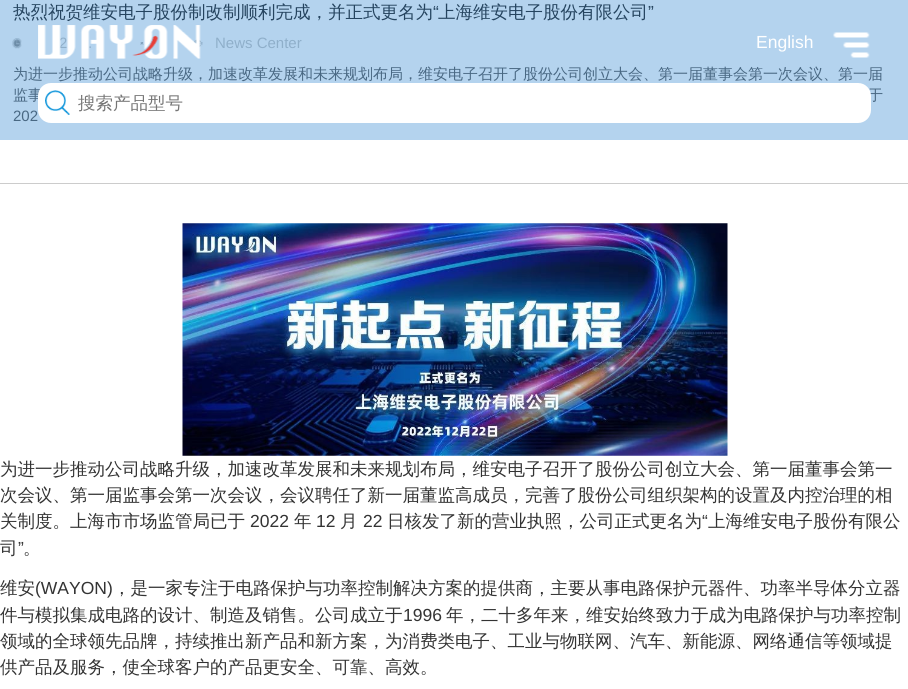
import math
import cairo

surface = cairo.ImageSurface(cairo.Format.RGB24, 908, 689)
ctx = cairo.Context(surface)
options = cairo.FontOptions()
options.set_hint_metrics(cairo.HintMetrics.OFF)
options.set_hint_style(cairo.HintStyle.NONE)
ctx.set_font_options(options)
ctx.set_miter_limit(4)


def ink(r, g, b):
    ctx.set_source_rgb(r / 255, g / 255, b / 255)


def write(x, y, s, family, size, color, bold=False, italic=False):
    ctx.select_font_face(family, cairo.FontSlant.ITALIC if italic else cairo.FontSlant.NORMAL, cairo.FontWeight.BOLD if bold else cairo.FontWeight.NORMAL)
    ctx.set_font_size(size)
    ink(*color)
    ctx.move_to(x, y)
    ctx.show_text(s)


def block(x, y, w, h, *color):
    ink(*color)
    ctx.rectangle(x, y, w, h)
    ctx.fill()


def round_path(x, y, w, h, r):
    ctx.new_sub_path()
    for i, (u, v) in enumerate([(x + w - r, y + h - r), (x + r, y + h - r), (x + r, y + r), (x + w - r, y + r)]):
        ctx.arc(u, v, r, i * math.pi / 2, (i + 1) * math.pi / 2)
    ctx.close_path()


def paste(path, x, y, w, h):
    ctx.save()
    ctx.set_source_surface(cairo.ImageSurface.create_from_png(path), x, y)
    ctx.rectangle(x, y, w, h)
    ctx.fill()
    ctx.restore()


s1 = dict(family="WenQuanYi Zen Hei Medium", size=17.5, color=(37, 68, 95))
s2 = dict(family="Liberation Sans", size=17.5, color=(37, 68, 95))
s3 = dict(family="Liberation Sans", size=15, color=(143, 175, 202))
s4 = dict(family="WenQuanYi Zen Hei Medium", size=15, color=(73, 104, 131))
s5 = dict(family="Liberation Sans", size=15, color=(73, 104, 131))
s6 = dict(family="WenQuanYi Zen Hei Medium", size=17.5, color=(51, 51, 51))
s7 = dict(family="Liberation Sans", size=17.5, color=(51, 51, 51))
s8 = dict(family="Liberation Sans", size=17.5, color=(255, 255, 255))
s9 = dict(family="WenQuanYi Zen Hei Medium", size=17.5, color=(117, 117, 117))

ink(255, 255, 255)
ctx.paint()
block(0, 0, 908, 140, 180, 211, 238)
block(0, 183, 908, 1, 204, 204, 204)
write(13, 18, "热烈祝贺维安电子股份制改制顺利完成，并正式更名为", **s1)
write(433, 18, "“", **s2)
write(438, 18, "上海维安电子股份有限公司", **s1)
write(648, 18, "”", **s2)
paste("pic1.png", 12, 38, 10, 11)
write(59, 48, "2", **s3)
write(88, 48, ".", **s3)
paste("pic2.png", 140, 42, 4, 3)
paste("pic3.png", 192, 39, 11, 8)
write(215, 48, "News Center", **s3)
write(13, 79, "为进一步推动公司战略升级，加速改革发展和未来规划布局，维安电子召开了股份公司创立大会、第一届董事会第一次会议、第一届", **s4)
write(13, 100, "监事", **s4)
write(868, 100, "于", **s4)
write(13, 121, "202", **s5)
paste("pic4.png", 182, 223, 546, 233)
write(0, 475, "为进一步推动公司战略升级，加速改革发展和未来规划布局，维安电子召开了股份公司创立大会、第一届董事会第一", **s6)
write(0, 501, "次会议、第一届监事会第一次会议，会议聘任了新一届董监高成员，完善了股份公司组织架构的设置及内控治理的相", **s6)
write(0, 527, "关制度。上海市市场监管局已于", **s6)
write(250, 527, "2022", **s7)
write(294, 527, "年", **s6)
write(316, 527, "12", **s7)
write(340, 527, "月", **s6)
write(363, 527, "22", **s7)
write(387, 527, "日核发了新的营业执照，公司正式更名为", **s6)
write(702, 527, "“", **s7)
write(708, 527, "上海维安电子股份有限公", **s6)
write(0, 554, "司", **s6)
write(18, 554, "”", **s7)
write(23, 554, "。", **s6)
write(0, 594, "维安", **s6)
write(35, 594, "(WAYON)", **s7)
write(113, 594, "，是一家专注于电路保护与功率控制解决方案的提供商，主要从事电路保护元器件、功率半导体分立器", **s6)
write(0, 621, "件与模拟集成电路的设计、制造及销售。公司成立于", **s6)
write(403, 621, "1996", **s7)
write(446, 621, "年，二十多年来，维安始终致力于成为电路保护与功率控制", **s6)
write(0, 647, "领域的全球领先品牌，持续推出新产品和新方案，为消费类电子、工业与物联网、汽车、新能源、网络通信等领域提", **s6)
write(0, 673, "供产品及服务，使全球客户的产品更安全、可靠、高效。", **s6)
paste("pic5.png", 38, 25, 163, 34)
write(756, 48, "English", **s8)
paste("pic6.png", 833, 32, 37, 26)
round_path(38, 83, 833, 40, 13)
ctx.fill()
paste("pic7.png", 45, 90, 25, 25)
write(78, 109, "搜索产品型号", **s9)
surface.write_to_png("screenshot.png")
